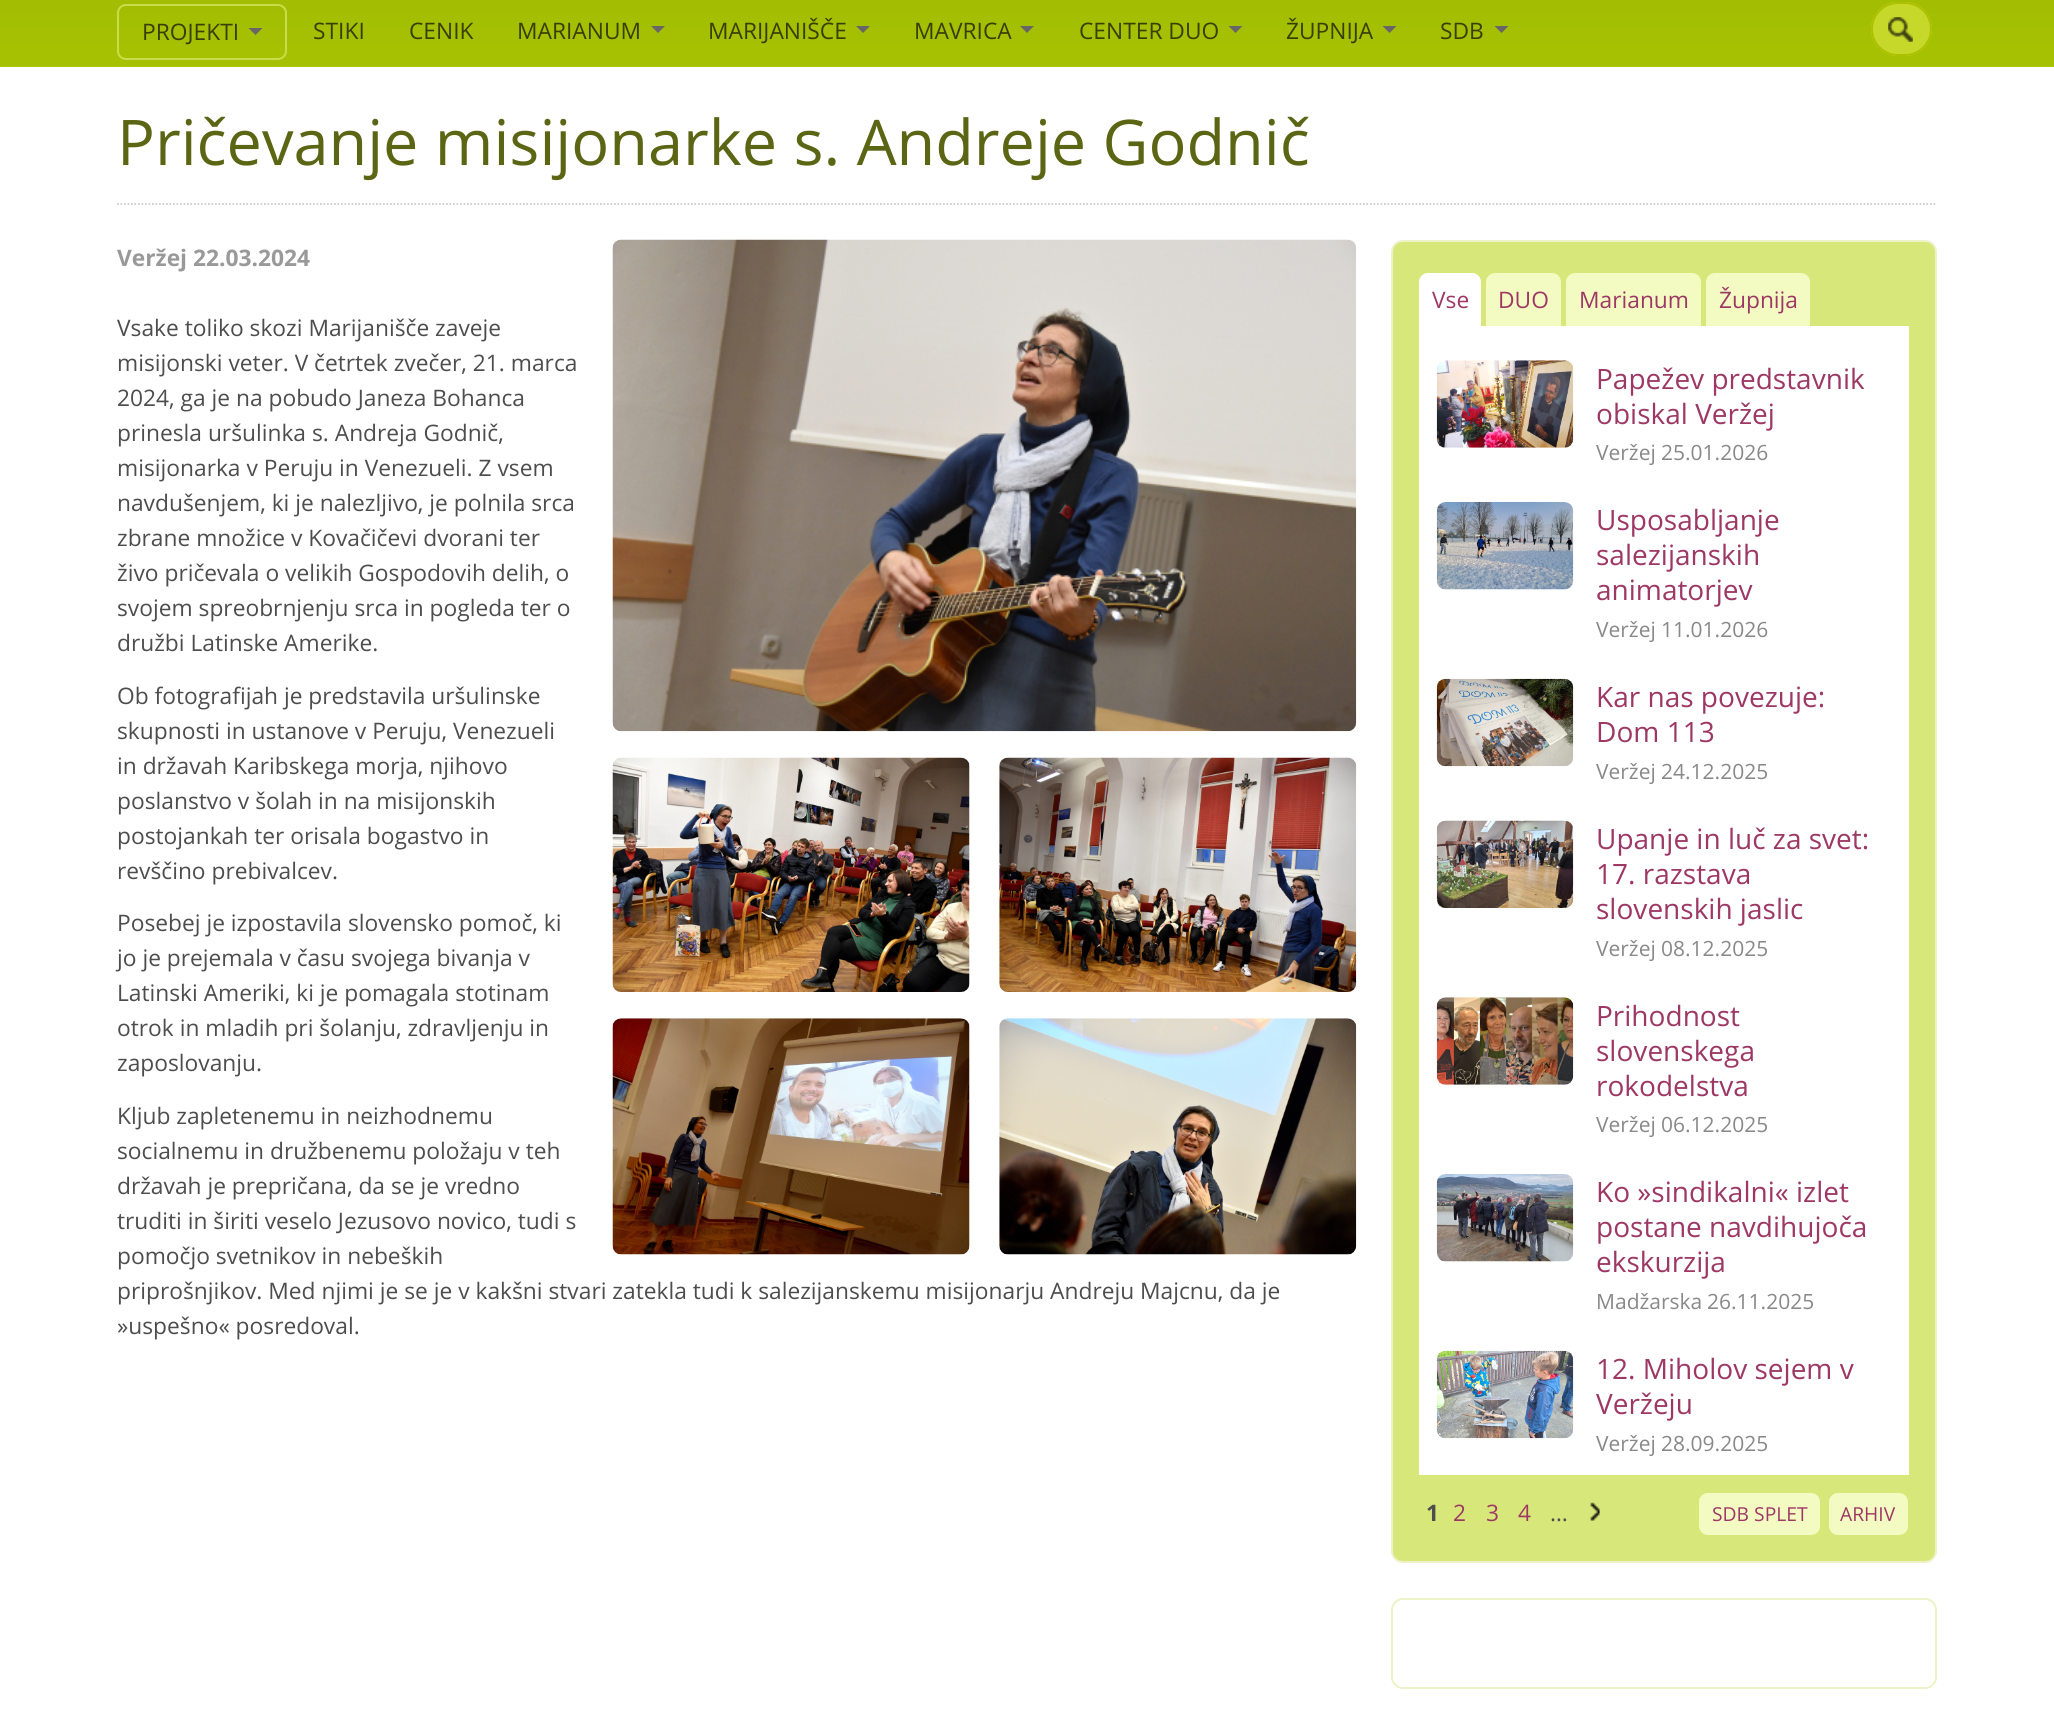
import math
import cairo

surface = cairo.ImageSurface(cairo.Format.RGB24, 2054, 1735)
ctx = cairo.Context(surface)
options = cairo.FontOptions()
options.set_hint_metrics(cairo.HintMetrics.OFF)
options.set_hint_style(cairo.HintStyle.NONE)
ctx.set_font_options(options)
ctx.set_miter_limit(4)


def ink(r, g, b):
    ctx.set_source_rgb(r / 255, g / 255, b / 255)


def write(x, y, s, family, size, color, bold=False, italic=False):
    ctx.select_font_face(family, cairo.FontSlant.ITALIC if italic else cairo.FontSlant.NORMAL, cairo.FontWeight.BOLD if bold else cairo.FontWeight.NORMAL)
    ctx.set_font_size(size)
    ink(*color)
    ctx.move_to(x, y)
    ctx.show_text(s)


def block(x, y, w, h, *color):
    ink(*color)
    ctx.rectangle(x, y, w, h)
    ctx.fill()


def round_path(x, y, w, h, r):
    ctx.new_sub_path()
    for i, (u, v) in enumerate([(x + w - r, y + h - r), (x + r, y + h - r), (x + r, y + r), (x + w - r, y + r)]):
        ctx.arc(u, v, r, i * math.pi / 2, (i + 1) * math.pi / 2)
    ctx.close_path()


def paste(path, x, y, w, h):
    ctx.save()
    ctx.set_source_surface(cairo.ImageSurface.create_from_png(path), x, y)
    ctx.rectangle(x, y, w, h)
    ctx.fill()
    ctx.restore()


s1 = dict(family="Open Sans", size=22.75, color=(55, 63, 4))
s2 = dict(family="Open Sans", size=63, color=(91, 102, 20))
s3 = dict(family="Open Sans", size=22.75, color=(153, 153, 153), bold=True)
s4 = dict(family="Open Sans", size=22.75, color=(77, 77, 77))
s5 = dict(family="Open Sans", size=22.75, color=(157, 56, 101))
s6 = dict(family="Open Sans", size=28, color=(157, 56, 101))
s7 = dict(family="Open Sans", size=21, color=(137, 137, 137))
s8 = dict(family="Open Sans", size=22.75, color=(77, 77, 77), bold=True)
s9 = dict(family="Open Sans", size=19.25, color=(157, 56, 101))

ink(255, 255, 255)
ctx.paint()
block(0, 66, 2054, 1, 174, 198, 9)
paste("pic1.png", 0, 0, 2054, 66)
round_path(118, 5, 168, 54, 8)
ink(201, 220, 73)
ctx.stroke()
write(142, 40, "PROJEKTI", **s1)
ink(102, 102, 102)
ctx.new_path()
ctx.move_to(248.5, 28)
ctx.line_to(262.5, 28)
ctx.line_to(255.5, 35)
ctx.close_path()
ctx.fill()
write(313, 39, "STIKI", **s1)
write(409, 39, "CENIK", **s1)
write(517, 39, "MARIANUM", **s1)
ink(102, 102, 102)
ctx.new_path()
ctx.move_to(651, 26)
ctx.line_to(665, 26)
ctx.line_to(658, 33)
ctx.close_path()
ctx.fill()
write(708, 39, "MARIJANIŠČE", **s1)
ink(102, 102, 102)
ctx.new_path()
ctx.move_to(856, 26)
ctx.line_to(870, 26)
ctx.line_to(863, 33)
ctx.close_path()
ctx.fill()
write(914, 39, "MAVRICA", **s1)
ink(102, 102, 102)
ctx.new_path()
ctx.move_to(1020, 26)
ctx.line_to(1034, 26)
ctx.line_to(1027, 33)
ctx.close_path()
ctx.fill()
write(1079, 39, "CENTER DUO", **s1)
ink(102, 102, 102)
ctx.new_path()
ctx.move_to(1228.5, 26)
ctx.line_to(1242.5, 26)
ctx.line_to(1235.5, 33)
ctx.close_path()
ctx.fill()
write(1286, 39, "ŽUPNIJA", **s1)
ink(102, 102, 102)
ctx.new_path()
ctx.move_to(1382.5, 26)
ctx.line_to(1396.5, 26)
ctx.line_to(1389.5, 33)
ctx.close_path()
ctx.fill()
write(1440, 39, "SDB", **s1)
ink(102, 102, 102)
ctx.new_path()
ctx.move_to(1494.5, 26)
ctx.line_to(1508.5, 26)
ctx.line_to(1501.5, 33)
ctx.close_path()
ctx.fill()
ink(198, 216, 42)
round_path(1871, 2, 61, 54, 27)
ctx.fill()
paste("pic2.png", 1888, 17, 25, 25)
round_path(1872, 3, 59, 52, 26)
ink(172, 193, 0)
ctx.stroke()
ctx.new_path()
ctx.move_to(117, 204)
ctx.line_to(1937, 204)
ink(204, 204, 204)
ctx.set_line_width(1.8)
ctx.set_dash([1.75, 1.75])
ctx.stroke()
write(117, 165, "Pričevanje misijonarke s. Andreje Godnič", **s2)
write(117, 266, "Veržej 22.03.2024", **s3)
paste("pic3.png", 612, 239, 745, 493)
paste("pic4.png", 612, 757, 358, 235)
paste("pic5.png", 999, 757, 358, 235)
paste("pic6.png", 612, 1018, 358, 237)
paste("pic7.png", 999, 1018, 358, 237)
write(117, 336, "Vsake toliko skozi Marijanišče zaveje", **s4)
write(117, 371, "misijonski veter. V četrtek zvečer, 21. marca", **s4)
write(117, 406, "2024, ga je na pobudo Janeza Bohanca", **s4)
write(117, 441, "prinesla uršulinka s. Andreja Godnič,", **s4)
write(117, 476, "misijonarka v Peruju in Venezueli. Z vsem", **s4)
write(117, 511, "navdušenjem, ki je nalezljivo, je polnila srca", **s4)
write(117, 546, "zbrane množice v Kovačičevi dvorani ter", **s4)
write(117, 581, "živo pričevala o velikih Gospodovih delih, o", **s4)
write(117, 616, "svojem spreobrnjenju srca in pogleda ter o", **s4)
write(117, 651, "družbi Latinske Amerike.", **s4)
write(117, 704, "Ob fotografijah je predstavila uršulinske", **s4)
write(117, 739, "skupnosti in ustanove v Peruju, Venezueli", **s4)
write(117, 774, "in državah Karibskega morja, njihovo", **s4)
write(117, 809, "poslanstvo v šolah in na misijonskih", **s4)
write(117, 844, "postojankah ter orisala bogastvo in", **s4)
write(117, 879, "revščino prebivalcev.", **s4)
write(117, 931, "Posebej je izpostavila slovensko pomoč, ki", **s4)
write(117, 966, "jo je prejemala v času svojega bivanja v", **s4)
write(117, 1001, "Latinski Ameriki, ki je pomagala stotinam", **s4)
write(117, 1036, "otrok in mladih pri šolanju, zdravljenju in", **s4)
write(117, 1071, "zaposlovanju.", **s4)
write(117, 1124, "Kljub zapletenemu in neizhodnemu", **s4)
write(117, 1159, "socialnemu in družbenemu položaju v teh", **s4)
write(117, 1194, "državah je prepričana, da se je vredno", **s4)
write(117, 1229, "truditi in širiti veselo Jezusovo novico, tudi s", **s4)
write(117, 1264, "pomočjo svetnikov in nebeških", **s4)
write(117, 1299, "priprošnjikov. Med njimi je se je v kakšni stvari zatekla tudi k salezijanskemu misijonarju Andreju Majcnu, da je", **s4)
write(117, 1334, "»uspešno« posredoval.", **s4)
ink(216, 231, 121)
round_path(1392, 241, 544, 1321, 11)
ctx.fill_preserve()
ink(237, 242, 200)
ctx.set_line_width(2)
ctx.set_dash([])
ctx.stroke()
ink(255, 255, 255)
ctx.new_path()
ctx.move_to(1428, 273)
ctx.line_to(1472, 273)
ctx.curve_to(1477, 273, 1481, 277, 1481, 282)
ctx.line_to(1481, 326)
ctx.line_to(1419, 326)
ctx.line_to(1419, 282)
ctx.curve_to(1419, 277, 1423, 273, 1428, 273)
ctx.close_path()
ctx.fill()
write(1432, 308, "Vse", **s5)
ink(243, 251, 195)
ctx.new_path()
ctx.move_to(1495, 273)
ctx.line_to(1552, 273)
ctx.curve_to(1557, 273, 1561, 277, 1561, 282)
ctx.line_to(1561, 326)
ctx.line_to(1486, 326)
ctx.line_to(1486, 282)
ctx.curve_to(1486, 277, 1490, 273, 1495, 273)
ctx.close_path()
ctx.fill()
write(1498, 308, "DUO", **s5)
ink(243, 251, 195)
ctx.new_path()
ctx.move_to(1575, 273)
ctx.line_to(1692, 273)
ctx.curve_to(1697, 273, 1701, 277, 1701, 282)
ctx.line_to(1701, 326)
ctx.line_to(1566, 326)
ctx.line_to(1566, 282)
ctx.curve_to(1566, 277, 1570, 273, 1575, 273)
ctx.close_path()
ctx.fill()
write(1579, 308, "Marianum", **s5)
ink(243, 251, 195)
ctx.new_path()
ctx.move_to(1715, 273)
ctx.line_to(1801, 273)
ctx.curve_to(1806, 273, 1810, 277, 1810, 282)
ctx.line_to(1810, 326)
ctx.line_to(1706, 326)
ctx.line_to(1706, 282)
ctx.curve_to(1706, 277, 1710, 273, 1715, 273)
ctx.close_path()
ctx.fill()
write(1719, 308, "Župnija", **s5)
block(1419, 326, 490, 1149, 255, 255, 255)
paste("pic8.png", 1436, 360, 138, 88)
write(1596, 389, "Papežev predstavnik", **s6)
write(1596, 424, "obiskal Veržej", **s6)
write(1596, 460, "Veržej", **s7)
write(1661, 460, "25.01.2026", **s7)
paste("pic9.png", 1436, 502, 138, 88)
write(1596, 530, "Usposabljanje", **s6)
write(1596, 565, "salezijanskih", **s6)
write(1596, 600, "animatorjev", **s6)
write(1596, 637, "Veržej", **s7)
write(1661, 637, "11.01.2026", **s7)
paste("pic10.png", 1436, 678, 138, 89)
write(1596, 707, "Kar nas povezuje:", **s6)
write(1596, 742, "Dom 113", **s6)
write(1596, 779, "Veržej", **s7)
write(1661, 779, "24.12.2025", **s7)
paste("pic11.png", 1436, 820, 138, 88)
write(1596, 849, "Upanje in luč za svet:", **s6)
write(1596, 884, "17. razstava", **s6)
write(1596, 919, "slovenskih jaslic", **s6)
write(1596, 956, "Veržej", **s7)
write(1661, 956, "08.12.2025", **s7)
paste("pic12.png", 1436, 997, 138, 88)
write(1596, 1026, "Prihodnost", **s6)
write(1596, 1061, "slovenskega", **s6)
write(1596, 1096, "rokodelstva", **s6)
write(1596, 1132, "Veržej", **s7)
write(1661, 1132, "06.12.2025", **s7)
paste("pic13.png", 1436, 1174, 138, 88)
write(1596, 1202, "Ko »sindikalni« izlet", **s6)
write(1596, 1237, "postane navdihujoča", **s6)
write(1596, 1272, "ekskurzija", **s6)
write(1596, 1309, "Madžarska", **s7)
write(1707, 1309, "26.11.2025", **s7)
paste("pic14.png", 1436, 1350, 138, 89)
write(1596, 1379, "12. Miholov sejem v", **s6)
write(1596, 1414, "Veržeju", **s6)
write(1596, 1451, "Veržej", **s7)
write(1661, 1451, "28.09.2025", **s7)
write(1426, 1521, "1", **s8)
write(1453, 1521, "2", **s5)
write(1486, 1521, "3", **s5)
write(1518, 1521, "4", **s5)
write(1550, 1521, "…", **s4)
paste("pic15.png", 1590, 1502, 10, 19)
ink(243, 251, 195)
round_path(1699, 1493, 121, 42, 9)
ctx.fill()
write(1712, 1521, "SDB SPLET", **s9)
ink(243, 251, 195)
round_path(1829, 1493, 79, 42, 9)
ctx.fill()
write(1840, 1521, "ARHIV", **s9)
round_path(1392, 1599, 544, 89, 11)
ink(237, 242, 200)
ctx.stroke()
surface.write_to_png("screenshot.png")
